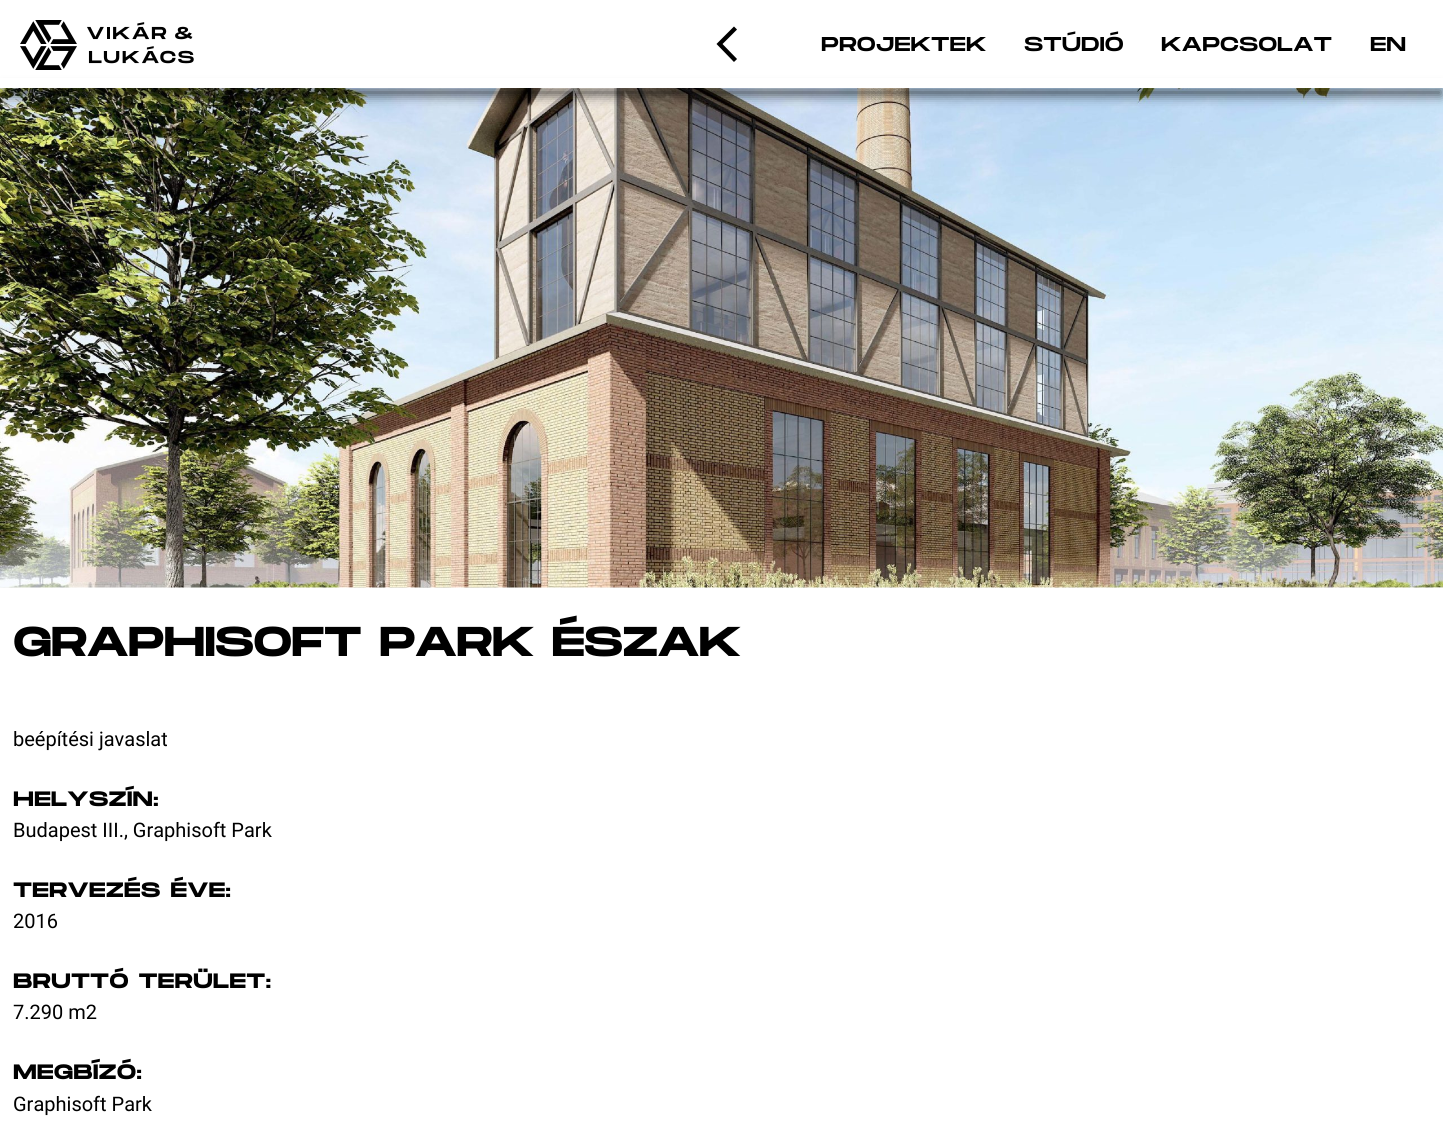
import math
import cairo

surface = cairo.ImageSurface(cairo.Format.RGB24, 1443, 1121)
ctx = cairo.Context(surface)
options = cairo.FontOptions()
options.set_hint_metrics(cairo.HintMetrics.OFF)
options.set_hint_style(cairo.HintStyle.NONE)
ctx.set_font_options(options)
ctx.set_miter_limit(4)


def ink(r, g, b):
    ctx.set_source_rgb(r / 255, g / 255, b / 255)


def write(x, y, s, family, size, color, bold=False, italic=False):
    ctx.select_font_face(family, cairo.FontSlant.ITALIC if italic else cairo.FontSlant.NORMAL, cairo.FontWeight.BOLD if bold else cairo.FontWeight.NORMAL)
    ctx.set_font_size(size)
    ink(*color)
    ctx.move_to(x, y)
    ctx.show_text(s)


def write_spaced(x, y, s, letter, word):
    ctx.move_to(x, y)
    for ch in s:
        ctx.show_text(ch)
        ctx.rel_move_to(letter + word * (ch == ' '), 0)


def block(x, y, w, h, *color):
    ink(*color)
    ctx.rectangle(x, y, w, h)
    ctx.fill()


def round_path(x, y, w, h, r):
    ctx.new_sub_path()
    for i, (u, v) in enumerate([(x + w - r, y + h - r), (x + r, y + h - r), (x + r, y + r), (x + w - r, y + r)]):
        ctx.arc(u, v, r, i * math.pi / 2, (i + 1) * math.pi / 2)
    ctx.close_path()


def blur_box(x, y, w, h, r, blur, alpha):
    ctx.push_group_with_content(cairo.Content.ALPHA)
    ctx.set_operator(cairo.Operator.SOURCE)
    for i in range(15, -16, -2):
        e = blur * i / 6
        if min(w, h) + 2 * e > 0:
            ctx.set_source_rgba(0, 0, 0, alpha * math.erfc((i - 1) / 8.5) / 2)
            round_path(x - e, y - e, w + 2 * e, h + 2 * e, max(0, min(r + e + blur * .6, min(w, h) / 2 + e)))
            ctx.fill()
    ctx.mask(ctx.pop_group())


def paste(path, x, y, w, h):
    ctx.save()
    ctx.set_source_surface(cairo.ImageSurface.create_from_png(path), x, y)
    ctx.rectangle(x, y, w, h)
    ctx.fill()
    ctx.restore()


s1 = dict(family="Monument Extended", size=20, color=(0, 0, 0))
s2 = dict(family="Monument Extended", size=40, color=(0, 0, 0), bold=True)
s3 = dict(family="Roboto", size=20, color=(0, 0, 0))

ink(255, 255, 255)
ctx.paint()
paste("pic1.png", 20, 20, 174, 50)
ctx.new_path()
ctx.move_to(735.5, 28)
ctx.line_to(719.5, 44)
ctx.line_to(735.5, 60.5)
ink(0, 0, 0)
ctx.set_line_width(4.3)
ctx.stroke()
write(821, 51, "PROJEKTEK", **s1)
write(1024, 51, "STÚDIÓ", **s1)
write(1161, 51, "KAPCSOLAT", **s1)
write(1370, 51, "EN", **s1)
paste("pic2.png", 0, 88, 1443, 500)
ink(0, 0, 0)
blur_box(3, 90, 1438, 5, 0, 6, 0.66)
block(0, 78, 1443, 10, 255, 255, 255)
write(13, 656, "GRAPHISOFT PARK ÉSZAK", **s2)
write(13, 746, "beépítési javaslat", **s3)
ctx.select_font_face("Monument Extended", cairo.FontSlant.NORMAL, cairo.FontWeight.BOLD)
write_spaced(13, 806, "HELYSZÍN:", 0.6, 0)
write(13, 837, "Budapest III., Graphisoft Park", **s3)
ctx.select_font_face("Monument Extended", cairo.FontSlant.NORMAL, cairo.FontWeight.BOLD)
write_spaced(13, 897, "TERVEZÉS ÉVE:", 0.6, 0)
write(13, 928, "2016", **s3)
ctx.select_font_face("Monument Extended", cairo.FontSlant.NORMAL, cairo.FontWeight.BOLD)
write_spaced(13, 988, "BRUTTÓ TERÜLET:", 0.6, 0)
write(13, 1019, "7.290 m2", **s3)
ctx.select_font_face("Monument Extended", cairo.FontSlant.NORMAL, cairo.FontWeight.BOLD)
write_spaced(13, 1079, "MEGBÍZÓ:", 0.6, 0)
write(13, 1111, "Graphisoft Park", **s3)
surface.write_to_png("screenshot.png")
